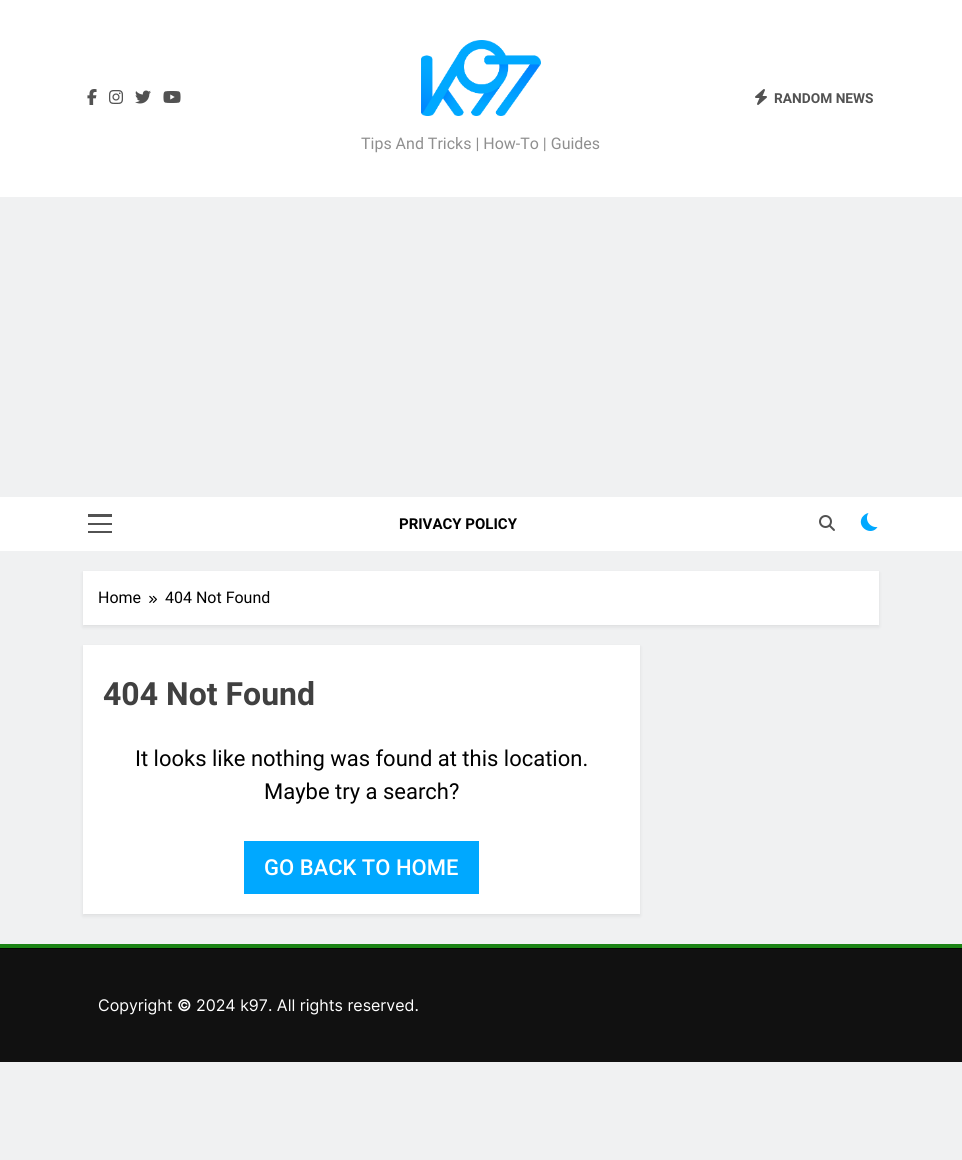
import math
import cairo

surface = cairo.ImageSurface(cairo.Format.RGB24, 962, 1160)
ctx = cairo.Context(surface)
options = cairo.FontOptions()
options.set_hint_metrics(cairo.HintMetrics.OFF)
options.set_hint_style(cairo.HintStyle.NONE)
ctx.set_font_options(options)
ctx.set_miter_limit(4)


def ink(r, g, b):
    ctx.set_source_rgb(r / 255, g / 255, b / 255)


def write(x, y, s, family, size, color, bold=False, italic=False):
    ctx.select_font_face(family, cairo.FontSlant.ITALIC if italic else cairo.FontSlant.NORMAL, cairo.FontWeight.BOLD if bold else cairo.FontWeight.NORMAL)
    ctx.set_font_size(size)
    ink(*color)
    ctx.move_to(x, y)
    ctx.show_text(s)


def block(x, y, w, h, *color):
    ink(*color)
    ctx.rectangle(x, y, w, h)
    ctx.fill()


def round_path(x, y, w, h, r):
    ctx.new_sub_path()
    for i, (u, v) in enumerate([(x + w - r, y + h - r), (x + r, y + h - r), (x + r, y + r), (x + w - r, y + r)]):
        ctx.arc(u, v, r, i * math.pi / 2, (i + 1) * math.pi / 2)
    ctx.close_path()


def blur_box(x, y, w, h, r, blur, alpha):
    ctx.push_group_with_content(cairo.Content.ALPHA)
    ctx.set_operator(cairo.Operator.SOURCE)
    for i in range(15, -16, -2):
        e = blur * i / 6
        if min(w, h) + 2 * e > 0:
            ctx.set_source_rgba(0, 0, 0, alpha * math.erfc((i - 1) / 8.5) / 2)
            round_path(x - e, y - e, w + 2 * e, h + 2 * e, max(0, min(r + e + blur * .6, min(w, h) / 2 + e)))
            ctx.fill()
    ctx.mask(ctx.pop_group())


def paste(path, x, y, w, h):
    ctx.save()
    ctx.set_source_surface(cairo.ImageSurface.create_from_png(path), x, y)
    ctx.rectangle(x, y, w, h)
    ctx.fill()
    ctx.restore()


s1 = dict(family="Roboto", size=13.75, color=(82, 82, 82), bold=True)
s2 = dict(family="Roboto", size=16, color=(143, 143, 143))
s3 = dict(family="Roboto", size=15, color=(0, 0, 0), bold=True)
s4 = dict(family="Roboto", size=16, color=(0, 0, 0))
s5 = dict(family="Roboto", size=32, color=(64, 64, 64), bold=True)
s6 = dict(family="Roboto", size=22, color=(0, 0, 0))
s7 = dict(family="Roboto Medium", size=22, color=(255, 255, 255))
s8 = dict(family="Inter", size=16, color=(255, 255, 255))
s9 = dict(family="Inter SemiBold", size=16, color=(255, 255, 255))

ink(240, 241, 242)
ctx.paint()
block(0, 949, 962, 113, 17, 17, 17)
block(0, 0, 962, 197, 255, 255, 255)
paste("pic1.png", 87, 89, 10, 16)
paste("pic2.png", 109, 90, 14, 14)
paste("pic3.png", 135, 90, 16, 14)
paste("pic4.png", 163, 91, 18, 12)
paste("pic5.png", 755, 89, 12, 16)
write(774, 103, "RANDOM NEWS", **s1)
paste("pic6.png", 421, 40, 120, 76)
write(361, 149, "Tips And Tricks | How-To | Guides", **s2)
block(0, 497, 962, 54, 255, 255, 255)
block(88, 514, 24, 3, 82, 82, 82)
block(88, 523, 24, 2, 82, 82, 82)
block(88, 531, 24, 2, 82, 82, 82)
write(399, 529, "PRIVACY POLICY", **s3)
paste("pic7.png", 819, 515, 16, 16)
ink(0, 168, 255)
ctx.new_path()
ctx.move_to(877.5, 527)
ctx.curve_to(870, 528, 864, 520, 868.5, 513)
ctx.curve_to(865.5, 513.5, 863.5, 515.5, 862, 517.5)
ctx.curve_to(856.5, 527.5, 871.5, 536.5, 877.5, 527)
ctx.close_path()
ctx.fill()
ink(0, 0, 0)
blur_box(83, 573, 796, 54, 0, 2, 0.08)
block(83, 571, 796, 54, 255, 255, 255)
write(98, 603, "Home", **s4)
paste("pic8.png", 149, 595, 8, 8)
write(165, 603, "404 Not Found", **s4)
ink(0, 0, 0)
blur_box(83, 647, 557, 269, 0, 2, 0.08)
block(83, 645, 557, 269, 255, 255, 255)
write(103, 705, "404 Not Found", **s5)
write(135, 766, "It looks like nothing was found at this location.", **s6)
write(264, 799, "Maybe try a search?", **s6)
block(244, 841, 235, 53, 0, 168, 255)
write(264, 875, "GO BACK TO HOME", **s7)
block(0, 944, 962, 4, 27, 132, 21)
block(0, 948, 962, 1, 2, 9, 1)
write(98, 1011, "Copyright", **s8)
write(177, 1011, "©", **s9)
write(196, 1011, "2024 k97. All rights reserved.", **s8)
surface.write_to_png("screenshot.png")
